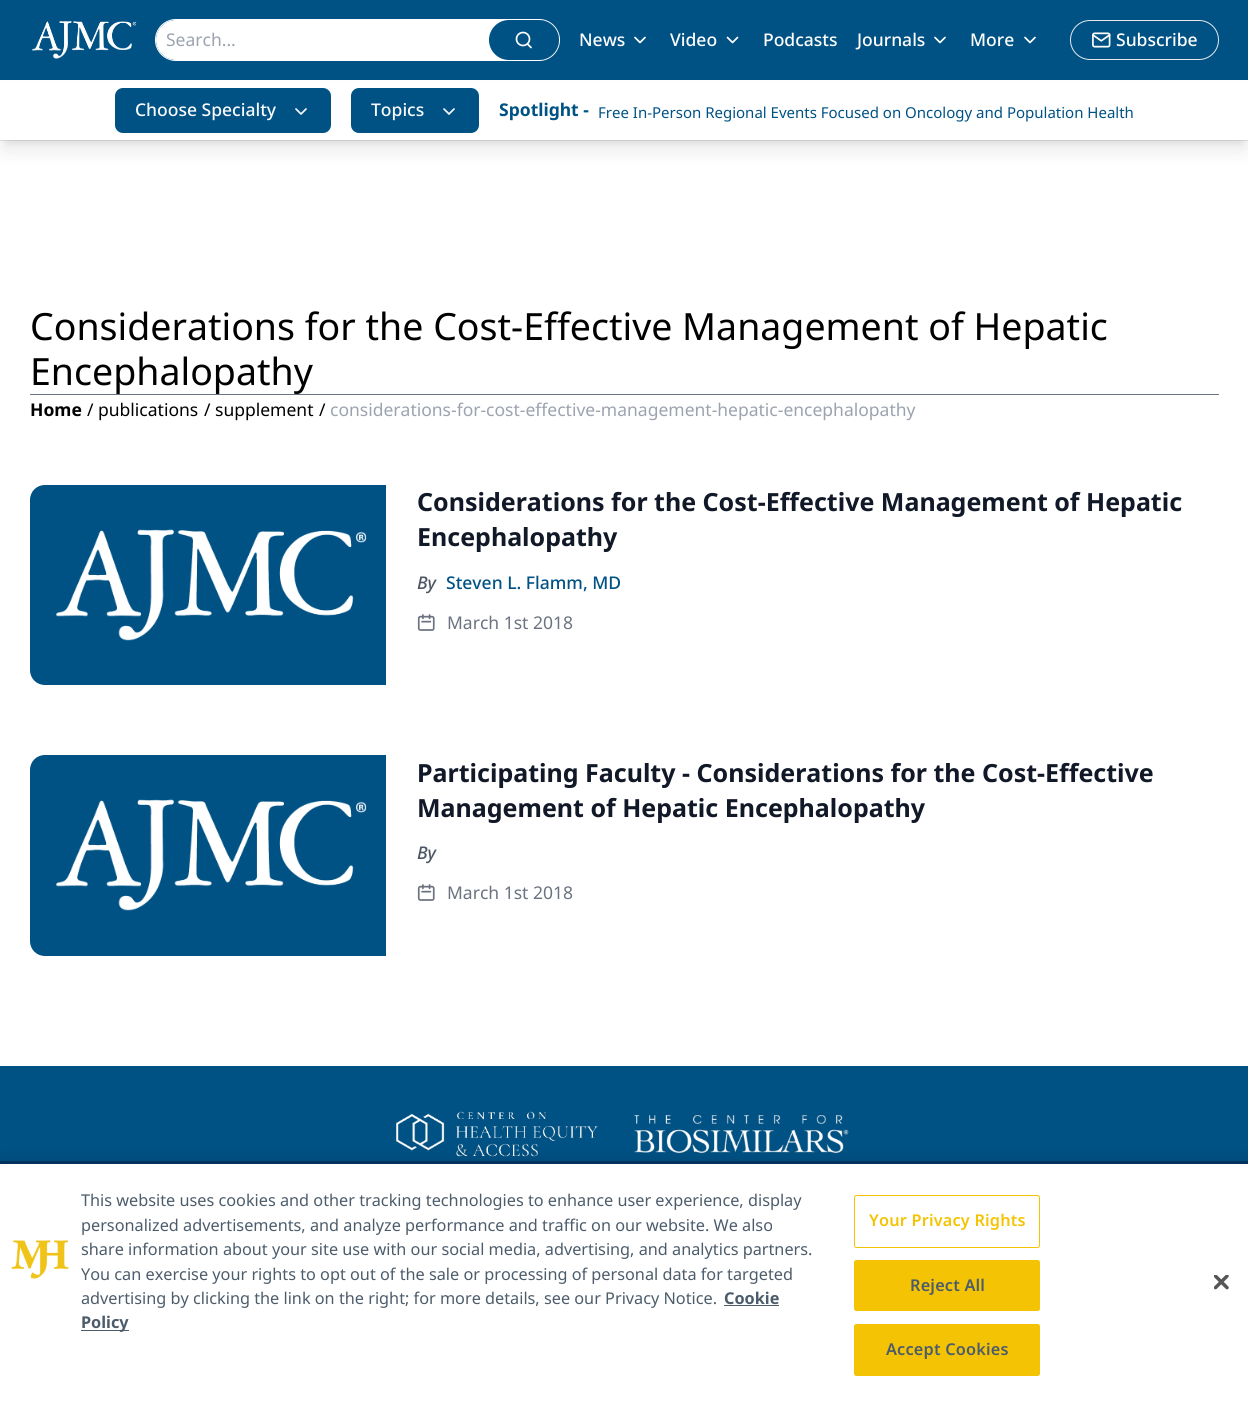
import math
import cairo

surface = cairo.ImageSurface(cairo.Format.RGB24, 1248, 1401)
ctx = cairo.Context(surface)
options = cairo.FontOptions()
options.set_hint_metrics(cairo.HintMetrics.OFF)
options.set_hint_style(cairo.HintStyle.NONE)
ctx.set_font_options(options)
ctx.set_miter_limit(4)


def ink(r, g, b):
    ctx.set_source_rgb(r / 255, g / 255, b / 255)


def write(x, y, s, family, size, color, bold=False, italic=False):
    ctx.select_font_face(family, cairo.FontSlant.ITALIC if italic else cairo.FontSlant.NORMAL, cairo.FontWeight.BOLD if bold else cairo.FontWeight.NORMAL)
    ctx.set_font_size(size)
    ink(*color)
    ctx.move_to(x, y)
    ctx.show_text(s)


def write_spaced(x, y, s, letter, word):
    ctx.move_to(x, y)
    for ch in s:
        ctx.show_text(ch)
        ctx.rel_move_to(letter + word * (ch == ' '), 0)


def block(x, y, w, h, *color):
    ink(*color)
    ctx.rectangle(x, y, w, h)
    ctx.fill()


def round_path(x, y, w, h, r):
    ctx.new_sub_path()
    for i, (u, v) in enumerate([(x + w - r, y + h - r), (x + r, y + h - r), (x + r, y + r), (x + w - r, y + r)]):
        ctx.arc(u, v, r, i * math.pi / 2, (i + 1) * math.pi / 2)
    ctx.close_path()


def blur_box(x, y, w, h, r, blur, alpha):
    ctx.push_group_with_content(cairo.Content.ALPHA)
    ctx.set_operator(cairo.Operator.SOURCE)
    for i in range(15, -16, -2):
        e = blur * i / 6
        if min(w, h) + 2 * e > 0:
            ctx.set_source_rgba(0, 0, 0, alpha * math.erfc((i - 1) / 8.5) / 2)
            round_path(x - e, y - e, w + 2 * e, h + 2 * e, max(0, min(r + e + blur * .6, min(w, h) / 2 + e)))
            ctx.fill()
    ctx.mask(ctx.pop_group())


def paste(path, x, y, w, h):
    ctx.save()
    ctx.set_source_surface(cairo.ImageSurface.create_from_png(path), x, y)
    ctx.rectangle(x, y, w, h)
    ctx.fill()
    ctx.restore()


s1 = dict(family="Noto Sans", size=17.5, color=(156, 163, 175))
s2 = dict(family="Noto Sans Medium", size=17.5, color=(255, 255, 255))
s3 = dict(family="Noto Sans Medium", size=17.5, color=(249, 250, 251))
s4 = dict(family="Noto Sans", size=17.5, color=(0, 82, 133), bold=True)
s5 = dict(family="Noto Sans", size=15, color=(0, 82, 133))
s6 = dict(family="Noto Sans", size=37.5, color=(0, 0, 0))
s7 = dict(family="Noto Sans", size=17.5, color=(0, 0, 0), bold=True)
s8 = dict(family="Noto Sans", size=17.5, color=(0, 0, 0))
s9 = dict(family="Noto Sans", size=25, color=(17, 24, 39), bold=True)
s10 = dict(family="Noto Sans Medium", size=17.5, color=(75, 85, 99), italic=True)
s11 = dict(family="Noto Sans Medium", size=17.5, color=(0, 82, 133))
s12 = dict(family="Noto Sans", size=17.5, color=(107, 114, 128))
s13 = dict(family="Noto Sans", size=16.25, color=(76, 92, 107))
s14 = dict(family="Noto Sans", size=16.25, color=(76, 92, 107), bold=True)

ink(255, 255, 255)
ctx.paint()
block(0, 0, 1248, 80, 0, 82, 133)
block(0, 140, 1248, 1, 229, 231, 235)
paste("pic1.png", 32, 21, 105, 38)
round_path(155.5, 19.5, 404, 41, 20.5)
ink(255, 255, 255)
ctx.set_line_width(1)
ctx.stroke()
round_path(156, 20, 403, 40, 20)
ctx.fill()
write(166, 46, "Search...", **s1)
ink(0, 82, 133)
round_path(489, 20, 70, 40, 20)
ctx.fill()
ctx.arc(523, 39, 6.5, 0, 2 * math.pi)
ink(255, 255, 255)
ctx.set_line_width(1.7)
ctx.stroke()
ctx.new_path()
ctx.move_to(531, 47.5)
ctx.line_to(527.5, 44)
ctx.set_line_cap(cairo.LineCap.ROUND)
ctx.set_line_join(cairo.LineJoin.ROUND)
ctx.stroke()
write(579, 46, "News", **s2)
ctx.new_path()
ctx.move_to(635, 37.5)
ctx.line_to(640, 42.5)
ctx.line_to(645, 37.5)
ctx.stroke()
write(670, 46, "Video", **s2)
ctx.new_path()
ctx.move_to(727.5, 37.5)
ctx.line_to(732.5, 42.5)
ctx.line_to(737.5, 37.5)
ctx.stroke()
write(763, 46, "Podcasts", **s2)
write(857, 46, "Journals", **s2)
ctx.new_path()
ctx.move_to(935, 37.5)
ctx.line_to(940, 42.5)
ctx.line_to(945, 37.5)
ctx.stroke()
write(970, 46, "More", **s2)
ctx.new_path()
ctx.move_to(1025, 37.5)
ctx.line_to(1030, 42.5)
ctx.line_to(1035, 37.5)
ctx.stroke()
round_path(1070.5, 20.5, 148, 39, 19.5)
ink(229, 231, 235)
ctx.set_line_width(1)
ctx.set_line_cap(cairo.LineCap.BUTT)
ctx.set_line_join(cairo.LineJoin.MITER)
ctx.stroke()
paste("pic2.png", 1092, 32, 19, 16)
write(1116, 46, "Subscribe", **s2)
ink(0, 0, 0)
blur_box(5, 90, 1239, 50, 0, 4, 0.1)
blur_box(4, 96, 1241, 53, 0, 9.5, 0.1)
block(0, 82, 1248, 58, 255, 255, 255)
ink(0, 82, 133)
round_path(115, 88, 216, 45, 8)
ctx.fill()
write(135, 116, "Choose Specialty", **s3)
ctx.new_path()
ctx.move_to(296, 109)
ctx.line_to(301, 114)
ctx.line_to(306, 109)
ctx.set_line_width(1.7)
ctx.set_line_cap(cairo.LineCap.ROUND)
ctx.set_line_join(cairo.LineJoin.ROUND)
ctx.stroke()
ink(0, 82, 133)
round_path(351, 88, 128, 45, 8)
ctx.fill()
write(371, 116, "Topics", **s3)
ctx.new_path()
ctx.move_to(444, 109)
ctx.line_to(449, 114)
ctx.line_to(454, 109)
ctx.stroke()
write(499, 116, "Spotlight -", **s4)
write(598, 118, "Free In-Person Regional Events Focused on Oncology and Population Health", **s5)
write(30, 340, "Considerations for the Cost-Effective Management of Hepatic", **s6)
write(30, 385, "Encephalopathy", **s6)
block(30, 394, 1189, 1, 107, 114, 128)
write(30, 416, "Home", **s7)
write(87, 416, "/", **s8)
write(98, 416, "publications", **s8)
write(204, 416, "/", **s8)
write(215, 416, "supplement", **s8)
write(319, 416, "/", **s8)
write(330, 416, "considerations-for-cost-effective-management-hepatic-encephalopathy", **s1)
ink(0, 82, 133)
ctx.new_path()
ctx.move_to(45, 485)
ctx.line_to(386, 485)
ctx.line_to(386, 685)
ctx.line_to(45, 685)
ctx.curve_to(36.5, 685, 30, 678.5, 30, 670)
ctx.line_to(30, 500)
ctx.curve_to(30, 491.5, 36.5, 485, 45, 485)
ctx.close_path()
ctx.fill()
paste("pic3.png", 56, 529, 311, 112)
write(417, 511, "Considerations for the Cost-Effective Management of Hepatic", **s9)
write(417, 546, "Encephalopathy", **s9)
write(417, 589, "By", **s10)
write(446, 589, "Steven L. Flamm, MD", **s11)
paste("pic4.png", 417, 614, 18, 17)
write(447, 629, "March 1st 2018", **s12)
ink(0, 82, 133)
ctx.new_path()
ctx.move_to(45, 755)
ctx.line_to(386, 755)
ctx.line_to(386, 956)
ctx.line_to(45, 956)
ctx.curve_to(36.5, 956, 30, 949.5, 30, 941)
ctx.line_to(30, 770)
ctx.curve_to(30, 761.5, 36.5, 755, 45, 755)
ctx.close_path()
ctx.fill()
paste("pic3.png", 56, 799, 311, 112)
write(417, 782, "Participating Faculty - Considerations for the Cost-Effective", **s9)
write(417, 817, "Management of Hepatic Encephalopathy", **s9)
write(417, 859, "By", **s10)
paste("pic4.png", 417, 884, 18, 17)
write(447, 899, "March 1st 2018", **s12)
block(0, 1066, 1248, 95, 0, 82, 133)
paste("pic5.png", 396, 1111, 202, 46)
paste("pic6.png", 634, 1114, 215, 40)
block(0, 1161, 1248, 3, 0, 55, 103)
ink(0, 0, 0)
blur_box(0, 1164, 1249, 237, 0, 11, 0.2)
block(0, 1164, 1248, 237, 255, 255, 255)
paste("pic7.png", 11, 1240, 58, 39)
write(81, 1206, "This website uses cookies and other tracking technologies to enhance user experience, display", **s13)
write(81, 1231, "personalized advertisements, and analyze performance and traffic on our website. We also", **s13)
write(81, 1255, "share information about your site use with our social media, advertising, and analytics partners.", **s13)
write(81, 1280, "You can exercise your rights to opt out of the sale or processing of personal data for targeted", **s13)
write(81, 1304, "advertising by clicking the link on the right; for more details, see our Privacy Notice.", **s13)
write(724, 1304, "Cookie", **s14)
block(724, 1305, 55, 1, 76, 92, 107)
block(81, 1330, 48, 1, 76, 92, 107)
write(81, 1328, "Policy", **s14)
round_path(854.5, 1195.5, 185, 52, 2)
ink(244, 196, 4)
ctx.set_line_width(1)
ctx.set_line_cap(cairo.LineCap.BUTT)
ctx.set_line_join(cairo.LineJoin.MITER)
ctx.stroke()
ctx.select_font_face("Noto Sans SemiBold")
write_spaced(869, 1226, "Your Privacy Rights", 0.2, 0)
round_path(854.5, 1260.5, 185, 50, 2)
ctx.fill_preserve()
ctx.stroke()
ink(76, 92, 107)
write_spaced(910, 1291, "Reject All", 0.2, 0)
ink(244, 196, 4)
round_path(854.5, 1324.5, 185, 51, 2)
ctx.fill_preserve()
ctx.stroke()
ink(76, 92, 107)
write_spaced(886, 1355, "Accept Cookies", 0.2, 0)
paste("pic8.png", 1214, 1275, 15, 15)
surface.write_to_png("screenshot.png")
